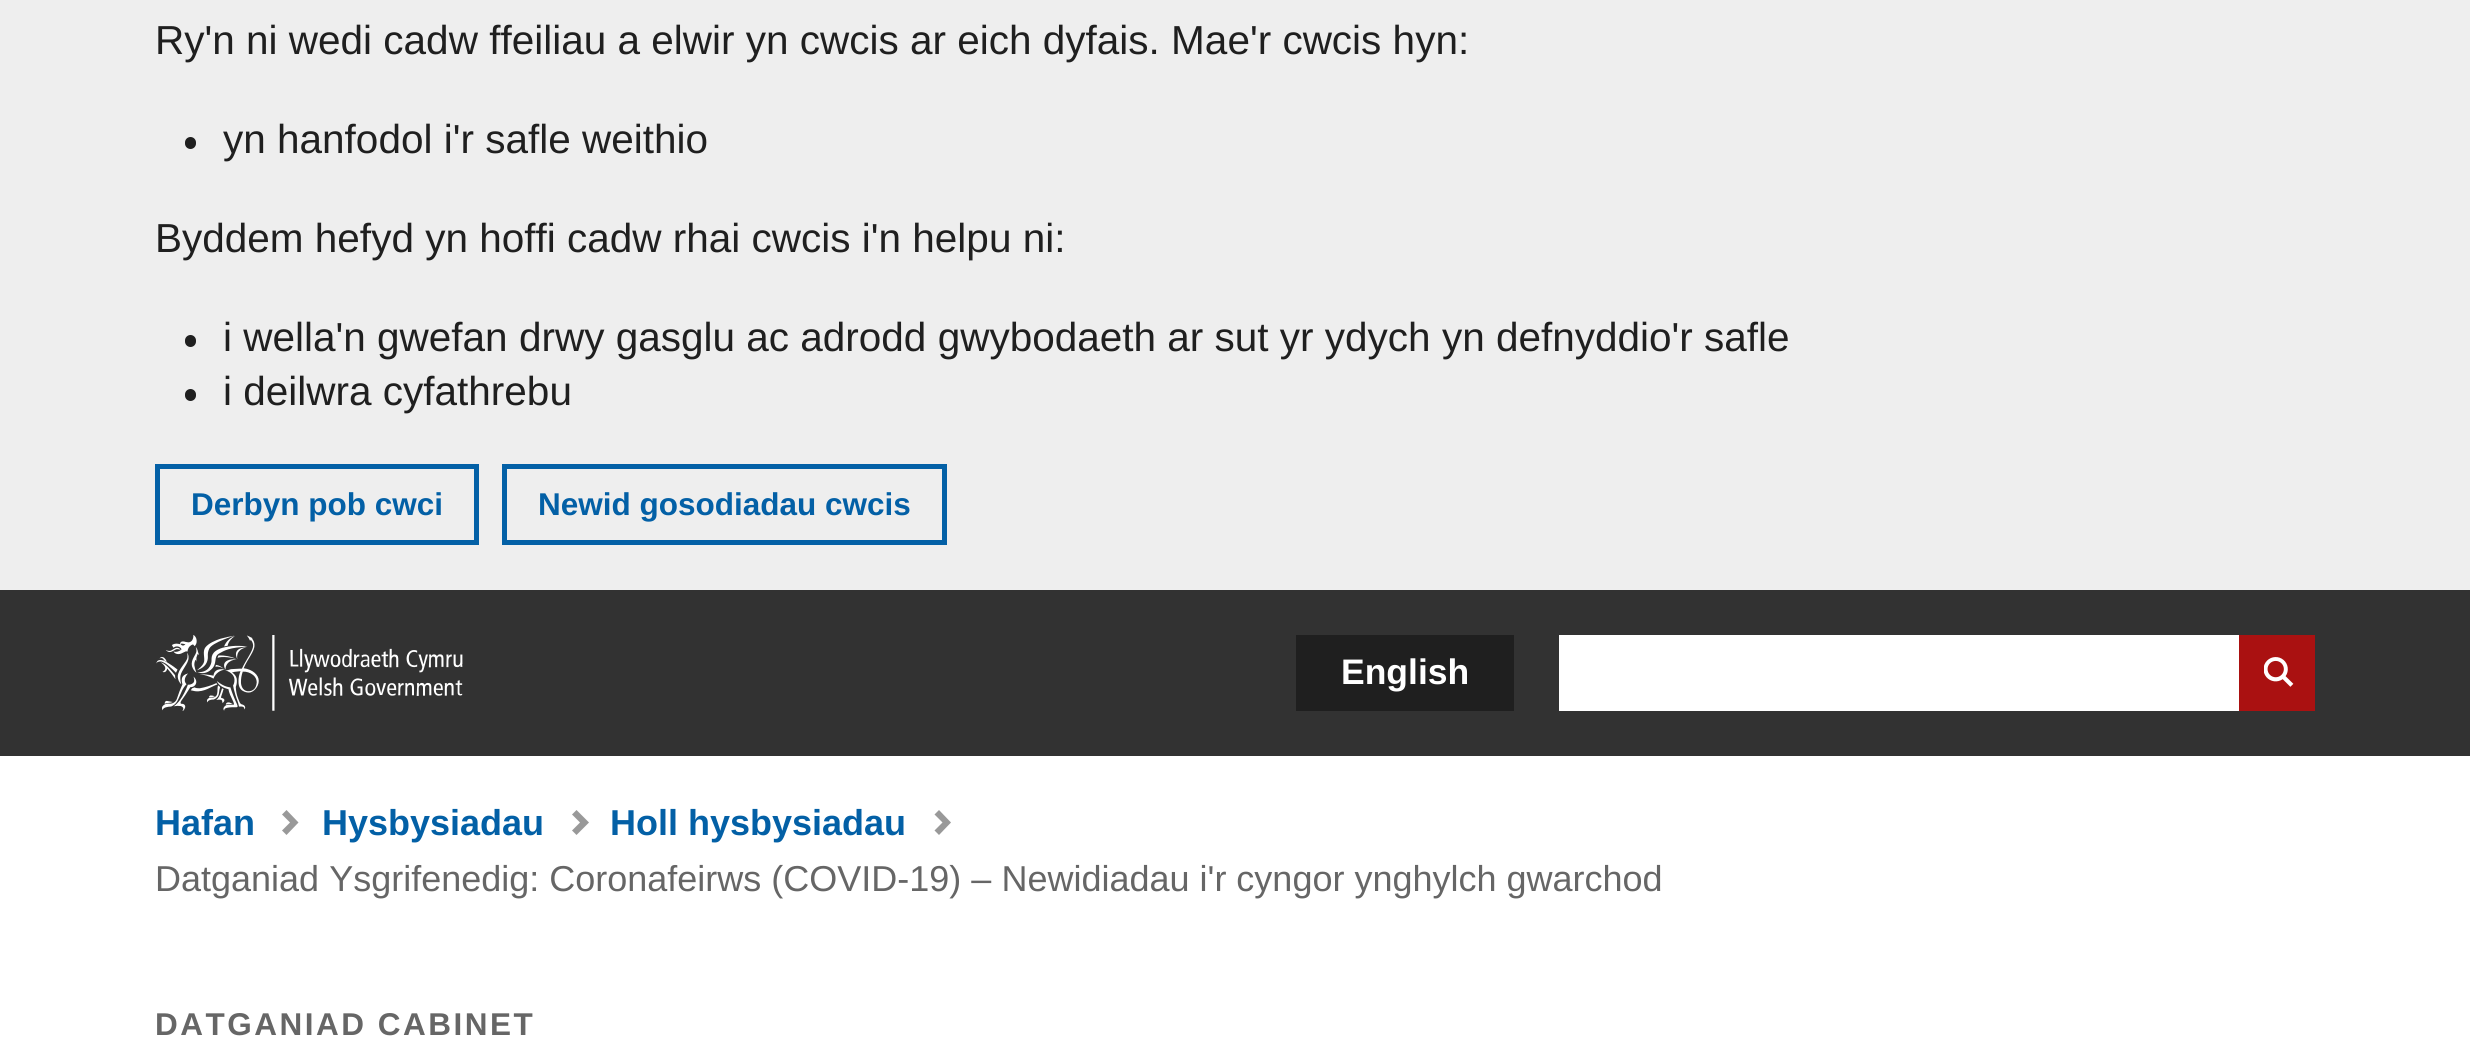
import math
import cairo

surface = cairo.ImageSurface(cairo.Format.RGB24, 2470, 1052)
ctx = cairo.Context(surface)
options = cairo.FontOptions()
options.set_hint_metrics(cairo.HintMetrics.OFF)
options.set_hint_style(cairo.HintStyle.NONE)
ctx.set_font_options(options)
ctx.set_miter_limit(4)


def ink(r, g, b):
    ctx.set_source_rgb(r / 255, g / 255, b / 255)


def write(x, y, s, family, size, color, bold=False, italic=False):
    ctx.select_font_face(family, cairo.FontSlant.ITALIC if italic else cairo.FontSlant.NORMAL, cairo.FontWeight.BOLD if bold else cairo.FontWeight.NORMAL)
    ctx.set_font_size(size)
    ink(*color)
    ctx.move_to(x, y)
    ctx.show_text(s)


def write_spaced(x, y, s, letter, word):
    ctx.move_to(x, y)
    for ch in s:
        ctx.show_text(ch)
        ctx.rel_move_to(letter + word * (ch == ' '), 0)


def block(x, y, w, h, *color):
    ink(*color)
    ctx.rectangle(x, y, w, h)
    ctx.fill()


def round_path(x, y, w, h, r):
    ctx.new_sub_path()
    for i, (u, v) in enumerate([(x + w - r, y + h - r), (x + r, y + h - r), (x + r, y + r), (x + w - r, y + r)]):
        ctx.arc(u, v, r, i * math.pi / 2, (i + 1) * math.pi / 2)
    ctx.close_path()


def paste(path, x, y, w, h):
    ctx.save()
    ctx.set_source_surface(cairo.ImageSurface.create_from_png(path), x, y)
    ctx.rectangle(x, y, w, h)
    ctx.fill()
    ctx.restore()


s1 = dict(family="Liberation Sans", size=40.5, color=(31, 31, 31))
s2 = dict(family="Liberation Sans", size=31.5, color=(3, 96, 166), bold=True)
s3 = dict(family="Liberation Sans", size=35.5, color=(255, 255, 255), bold=True)
s4 = dict(family="Liberation Sans", size=36, color=(3, 96, 166), bold=True)
s5 = dict(family="Liberation Sans", size=36, color=(102, 102, 102))

ink(238, 238, 238)
ctx.paint()
write(155, 54, "Ry'n ni wedi cadw ffeiliau a elwir yn cwcis ar eich dyfais. Mae'r cwcis hyn:", **s1)
round_path(185, 137, 11, 12, 5.5)
ctx.fill()
write(223, 153, "yn hanfodol i'r safle weithio", **s1)
write(155, 252, "Byddem hefyd yn hoffi cadw rhai cwcis i'n helpu ni:", **s1)
round_path(185, 335, 11, 12, 5.5)
ctx.fill()
write(223, 351, "i wella'n gwefan drwy gasglu ac adrodd gwybodaeth ar sut yr ydych yn defnyddio'r safle", **s1)
round_path(185, 389, 11, 12, 5.5)
ctx.fill()
write(223, 405, "i deilwra cyfathrebu", **s1)
ctx.rectangle(157.5, 466.5, 319, 76)
ink(3, 96, 166)
ctx.set_line_width(5)
ctx.stroke()
write(191, 515, "Derbyn pob cwci", **s2)
ctx.rectangle(504.5, 466.5, 440, 76)
ctx.stroke()
write(538, 515, "Newid gosodiadau cwcis", **s2)
block(0, 590, 2470, 166, 50, 50, 50)
paste("pic1.png", 156, 635, 307, 76)
block(1296, 635, 218, 76, 31, 31, 31)
write(1341, 684, "English", **s3)
block(1559, 635, 680, 76, 255, 255, 255)
block(2239, 635, 76, 76, 170, 17, 17)
paste("pic2.png", 2264, 657, 30, 30)
block(0, 756, 2470, 296, 255, 255, 255)
ink(153, 153, 153)
ctx.new_path()
ctx.move_to(298.5, 822.5)
ctx.line_to(286.5, 810)
ctx.line_to(282, 814.5)
ctx.line_to(290, 822.5)
ctx.line_to(282, 830.5)
ctx.line_to(286.5, 835)
ctx.close_path()
ctx.fill()
write(155, 835, "Hafan", **s4)
ink(153, 153, 153)
ctx.new_path()
ctx.move_to(589, 822.5)
ctx.line_to(576.5, 810)
ctx.line_to(572, 814.5)
ctx.line_to(580, 822.5)
ctx.line_to(572, 830.5)
ctx.line_to(576.5, 835)
ctx.close_path()
ctx.fill()
write(322, 835, "Hysbysiadau", **s4)
ink(153, 153, 153)
ctx.new_path()
ctx.move_to(951, 822.5)
ctx.line_to(939, 810)
ctx.line_to(934.5, 814.5)
ctx.line_to(942.5, 822.5)
ctx.line_to(934.5, 830.5)
ctx.line_to(939, 835)
ctx.close_path()
ctx.fill()
write(610, 835, "Holl hysbysiadau", **s4)
write(155, 891, "Datganiad Ysgrifenedig: Coronafeirws (COVID-19) – Newidiadau i'r cyngor ynghylch gwarchod", **s5)
ctx.select_font_face("Liberation Sans", cairo.FontSlant.NORMAL, cairo.FontWeight.BOLD)
ctx.set_font_size(31.5)
write_spaced(155, 1035, "DATGANIAD CABINET", 2.5, 0)
surface.write_to_png("screenshot.png")
